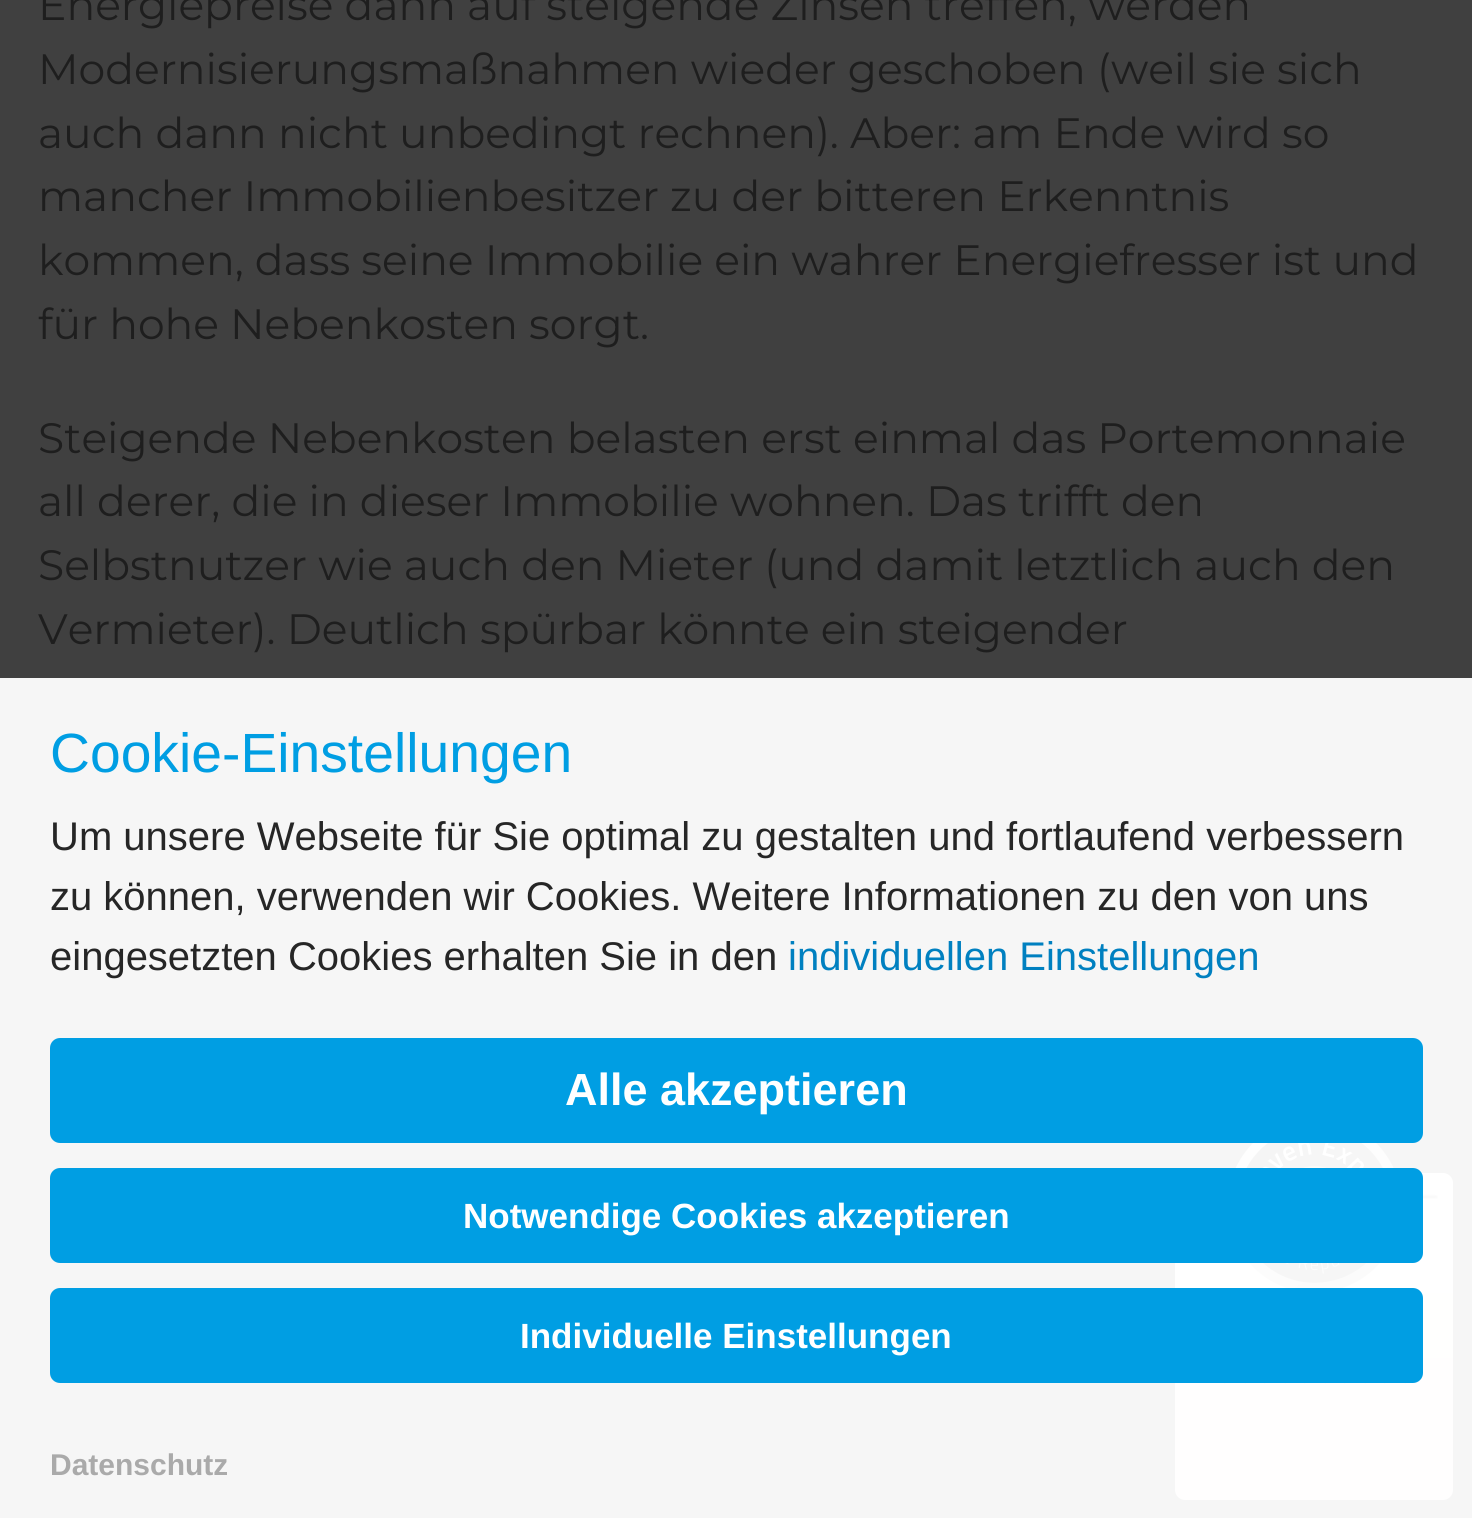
import math
import cairo

surface = cairo.ImageSurface(cairo.Format.RGB24, 1472, 1518)
ctx = cairo.Context(surface)
options = cairo.FontOptions()
options.set_hint_metrics(cairo.HintMetrics.OFF)
options.set_hint_style(cairo.HintStyle.NONE)
ctx.set_font_options(options)
ctx.set_miter_limit(4)


def ink(r, g, b):
    ctx.set_source_rgb(r / 255, g / 255, b / 255)


def write(x, y, s, family, size, color, bold=False, italic=False):
    ctx.select_font_face(family, cairo.FontSlant.ITALIC if italic else cairo.FontSlant.NORMAL, cairo.FontWeight.BOLD if bold else cairo.FontWeight.NORMAL)
    ctx.set_font_size(size)
    ink(*color)
    ctx.move_to(x, y)
    ctx.show_text(s)


def round_path(x, y, w, h, r):
    ctx.new_sub_path()
    for i, (u, v) in enumerate([(x + w - r, y + h - r), (x + r, y + h - r), (x + r, y + r), (x + w - r, y + r)]):
        ctx.arc(u, v, r, i * math.pi / 2, (i + 1) * math.pi / 2)
    ctx.close_path()


def blur_box(x, y, w, h, r, blur, alpha):
    ctx.push_group_with_content(cairo.Content.ALPHA)
    ctx.set_operator(cairo.Operator.SOURCE)
    for i in range(15, -16, -2):
        e = blur * i / 6
        if min(w, h) + 2 * e > 0:
            ctx.set_source_rgba(0, 0, 0, alpha * math.erfc((i - 1) / 8.5) / 2)
            round_path(x - e, y - e, w + 2 * e, h + 2 * e, max(0, min(r + e + blur * .6, min(w, h) / 2 + e)))
            ctx.fill()
    ctx.mask(ctx.pop_group())


def paste(path, x, y, w, h):
    ctx.save()
    ctx.set_source_surface(cairo.ImageSurface.create_from_png(path), x, y)
    ctx.rectangle(x, y, w, h)
    ctx.fill()
    ctx.restore()


s1 = dict(family="Montserrat Thin", size=42.5, color=(30, 30, 30))
s2 = dict(family="Liberation Sans", size=55.25, color=(0, 158, 227))
s3 = dict(family="Liberation Sans", size=40, color=(38, 38, 38))
s4 = dict(family="Liberation Sans", size=40, color=(0, 128, 192))
s5 = dict(family="Liberation Sans", size=45, color=(255, 255, 255), bold=True)
s6 = dict(family="Liberation Sans", size=35, color=(255, 255, 255), bold=True)
s7 = dict(family="Liberation Sans", size=30, color=(170, 170, 170), bold=True)

ink(64, 64, 64)
ctx.paint()
write(38, 20, "Energiepreise dann auf steigende Zinsen treffen, werden", **s1)
write(38, 84, "Modernisierungsmaßnahmen wieder geschoben (weil sie sich", **s1)
write(38, 148, "auch dann nicht unbedingt rechnen). Aber: am Ende wird so", **s1)
write(38, 211, "mancher Immobilienbesitzer zu der bitteren Erkenntnis", **s1)
write(38, 275, "kommen, dass seine Immobilie ein wahrer Energiefresser ist und", **s1)
write(38, 339, "für hohe Nebenkosten sorgt.", **s1)
write(38, 453, "Steigende Nebenkosten belasten erst einmal das Portemonnaie", **s1)
write(38, 516, "all derer, die in dieser Immobilie wohnen. Das trifft den", **s1)
write(38, 580, "Selbstnutzer wie auch den Mieter (und damit letztlich auch den", **s1)
write(38, 644, "Vermieter). Deutlich spürbar könnte ein steigender", **s1)
ink(0, 0, 0)
blur_box(1175, 1183, 268, 317, 5, 12.5, 0.25)
gradient = cairo.LinearGradient(1314, 1500, 1314, 1173)
gradient.add_color_stop_rgba(0.37, 0.965, 0.953, 0.918, 1)
gradient.add_color_stop_rgba(0.9, 1, 1, 1, 1)
ctx.set_source(gradient)
round_path(1175, 1173, 278, 327, 10)
ctx.fill()
paste("pic1.png", 1235, 1143, 159, 145)
paste("pic2.png", 1423, 1194, 15, 5)
ink(200, 178, 116)
ctx.new_path()
ctx.move_to(1235, 1351)
ctx.line_to(1240.5, 1362)
ctx.line_to(1252.5, 1363.5)
ctx.line_to(1243.5, 1372)
ctx.line_to(1246, 1384)
ctx.line_to(1235, 1378)
ctx.line_to(1224, 1384)
ctx.line_to(1226.5, 1372)
ctx.line_to(1217.5, 1363.5)
ctx.line_to(1229.5, 1362)
ctx.close_path()
ctx.fill()
ctx.new_path()
ctx.move_to(1275, 1351)
ctx.line_to(1280.5, 1362)
ctx.line_to(1292.5, 1363.5)
ctx.line_to(1283.5, 1372)
ctx.line_to(1286, 1384)
ctx.line_to(1275, 1378)
ctx.line_to(1264, 1384)
ctx.line_to(1266.5, 1372)
ctx.line_to(1257.5, 1363.5)
ctx.line_to(1269.5, 1362)
ctx.close_path()
ctx.fill()
ctx.new_path()
ctx.move_to(1315, 1351)
ctx.line_to(1320.5, 1362)
ctx.line_to(1332.5, 1363.5)
ctx.line_to(1323.5, 1372)
ctx.line_to(1326, 1384)
ctx.line_to(1315, 1378)
ctx.line_to(1304, 1384)
ctx.line_to(1306.5, 1372)
ctx.line_to(1297.5, 1363.5)
ctx.line_to(1309.5, 1362)
ctx.close_path()
ctx.fill()
ctx.new_path()
ctx.move_to(1355, 1351)
ctx.line_to(1360.5, 1362)
ctx.line_to(1372.5, 1363.5)
ctx.line_to(1363.5, 1372)
ctx.line_to(1366, 1384)
ctx.line_to(1355, 1378)
ctx.line_to(1344, 1384)
ctx.line_to(1346.5, 1372)
ctx.line_to(1337.5, 1363.5)
ctx.line_to(1349.5, 1362)
ctx.close_path()
ctx.fill()
ctx.new_path()
ctx.move_to(1395, 1351)
ctx.line_to(1400.5, 1362)
ctx.line_to(1412.5, 1363.5)
ctx.line_to(1403.5, 1372)
ctx.line_to(1406, 1384)
ctx.line_to(1395, 1378)
ctx.line_to(1384, 1384)
ctx.line_to(1386.5, 1372)
ctx.line_to(1377.5, 1363.5)
ctx.line_to(1389.5, 1362)
ctx.close_path()
ctx.fill()
ctx.set_source_rgba(1, 1, 1, 0.95)
ctx.rectangle(0, 678, 1472, 840)
ctx.fill()
write(50, 772, "Cookie-Einstellungen", **s2)
write(50, 850, "Um unsere Webseite für Sie optimal zu gestalten und fortlaufend verbessern", **s3)
write(50, 910, "zu können, verwenden wir Cookies. Weitere Informationen zu den von uns", **s3)
write(50, 970, "eingesetzten Cookies erhalten Sie in den", **s3)
write(788, 970, "individuellen Einstellungen", **s4)
ink(0, 158, 227)
round_path(52.5, 1040.5, 1368, 100, 7.5)
ctx.fill_preserve()
ctx.set_line_width(5)
ctx.stroke()
write(565, 1105, "Alle akzeptieren", **s5)
ink(0, 158, 227)
round_path(52.5, 1170.5, 1368, 90, 7.5)
ctx.fill_preserve()
ctx.stroke()
write(463, 1228, "Notwendige Cookies akzeptieren", **s6)
ink(0, 158, 227)
round_path(52.5, 1290.5, 1368, 90, 7.5)
ctx.fill_preserve()
ctx.stroke()
write(520, 1348, "Individuelle Einstellungen", **s6)
write(50, 1475, "Datenschutz", **s7)
surface.write_to_png("screenshot.png")
